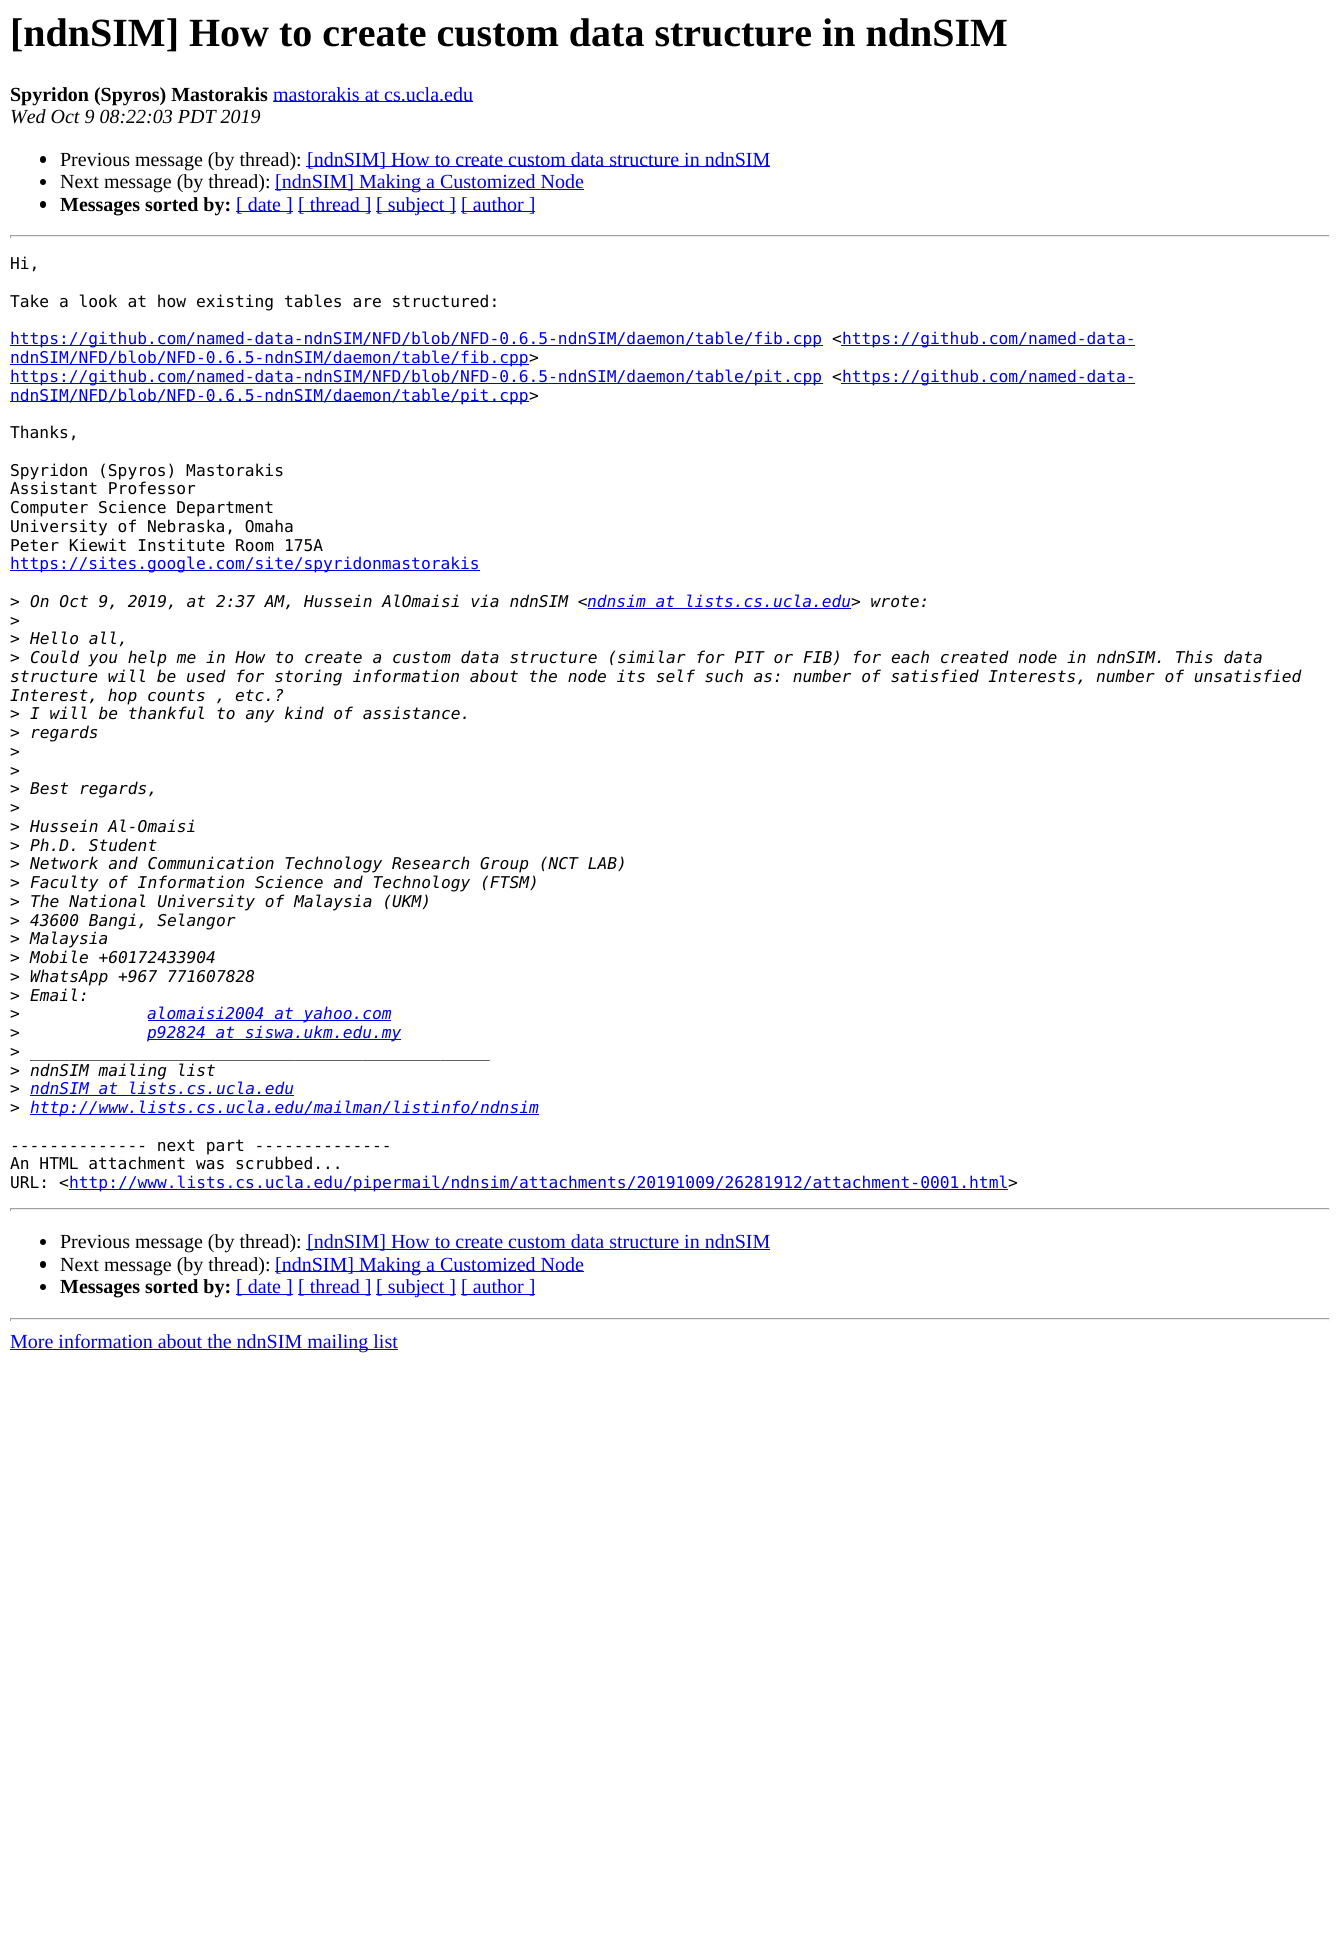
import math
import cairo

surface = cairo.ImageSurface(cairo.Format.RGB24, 1339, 1938)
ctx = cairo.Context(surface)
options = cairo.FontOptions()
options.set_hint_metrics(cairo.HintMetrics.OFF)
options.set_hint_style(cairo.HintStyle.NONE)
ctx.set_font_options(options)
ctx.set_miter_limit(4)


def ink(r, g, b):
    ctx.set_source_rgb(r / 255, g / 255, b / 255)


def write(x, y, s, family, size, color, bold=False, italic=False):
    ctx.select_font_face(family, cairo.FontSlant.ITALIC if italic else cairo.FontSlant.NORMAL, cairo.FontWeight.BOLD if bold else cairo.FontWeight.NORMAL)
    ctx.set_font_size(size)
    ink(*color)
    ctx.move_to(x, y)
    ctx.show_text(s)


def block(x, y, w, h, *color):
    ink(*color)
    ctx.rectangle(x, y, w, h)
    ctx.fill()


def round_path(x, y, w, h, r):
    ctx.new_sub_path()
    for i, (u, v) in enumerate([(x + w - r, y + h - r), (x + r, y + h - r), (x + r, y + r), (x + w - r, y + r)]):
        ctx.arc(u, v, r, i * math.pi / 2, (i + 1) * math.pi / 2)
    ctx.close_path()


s1 = dict(family="Liberation Serif", size=40, color=(0, 0, 0), bold=True)
s2 = dict(family="Liberation Serif", size=20, color=(0, 0, 0), bold=True)
s3 = dict(family="Liberation Serif", size=20, color=(0, 0, 238))
s4 = dict(family="Liberation Serif", size=20, color=(0, 0, 0), italic=True)
s5 = dict(family="Liberation Serif", size=20, color=(0, 0, 0))
s6 = dict(family="DejaVu Sans Mono", size=16.25, color=(0, 0, 0))
s7 = dict(family="DejaVu Sans Mono", size=16.25, color=(0, 0, 238))
s8 = dict(family="DejaVu Sans Mono", size=16.25, color=(0, 0, 0), italic=True)
s9 = dict(family="DejaVu Sans Mono", size=16.25, color=(0, 0, 238), italic=True)

ink(255, 255, 255)
ctx.paint()
write(10, 46, "[ndnSIM] How to create custom data structure in ndnSIM", **s1)
write(10, 101, "Spyridon (Spyros) Mastorakis", **s2)
block(273, 101, 200, 1, 0, 0, 238)
write(273, 101, "mastorakis at cs.ucla.edu", **s3)
write(10, 123, "Wed Oct 9 08:22:03 PDT 2019", **s4)
round_path(40, 156, 6, 7, 3)
ctx.fill()
write(60, 166, "Previous message (by thread):", **s5)
block(306, 166, 464, 1, 0, 0, 238)
write(307, 166, "[ndnSIM] How to create custom data structure in ndnSIM", **s3)
ink(0, 0, 0)
ctx.new_path()
ctx.arc(43, 182, 3, 0, 2 * math.pi)
ctx.fill()
write(60, 188, "Next message (by thread):", **s5)
block(275, 189, 309, 1, 0, 0, 238)
write(275, 188, "[ndnSIM] Making a Customized Node", **s3)
ink(0, 0, 0)
round_path(40, 201, 6, 7, 3)
ctx.fill()
write(60, 211, "Messages sorted by:", **s2)
block(236, 211, 57, 1, 0, 0, 238)
write(236, 211, "[ date ]", **s3)
block(298, 211, 73, 1, 0, 0, 238)
write(298, 211, "[ thread ]", **s3)
block(376, 211, 80, 1, 0, 0, 238)
write(376, 211, "[ subject ]", **s3)
block(461, 211, 74, 1, 0, 0, 238)
write(461, 211, "[ author ]", **s3)
block(10, 235, 1320, 1, 159, 159, 159)
block(1329, 235, 1, 3, 238, 238, 238)
block(10, 236, 1320, 1, 238, 238, 238)
block(10, 235, 1, 3, 159, 159, 159)
write(10, 269, "Hi,", **s6)
write(10, 307, "Take a look at how existing tables are structured:", **s6)
block(10, 345, 813, 1, 0, 0, 238)
write(10, 344, "https://github.com/named-data-ndnSIM/NFD/blob/NFD-0.6.5-ndnSIM/daemon/table/fib.cpp", **s7)
write(832, 344, "<", **s6)
block(841, 345, 294, 1, 0, 0, 238)
write(842, 344, "https://github.com/named-data-", **s7)
block(10, 364, 519, 1, 0, 0, 238)
write(10, 363, "ndnSIM/NFD/blob/NFD-0.6.5-ndnSIM/daemon/table/fib.cpp", **s7)
write(529, 363, ">", **s6)
block(10, 383, 813, 1, 0, 0, 238)
write(10, 382, "https://github.com/named-data-ndnSIM/NFD/blob/NFD-0.6.5-ndnSIM/daemon/table/pit.cpp", **s7)
write(832, 382, "<", **s6)
block(841, 383, 294, 1, 0, 0, 238)
write(842, 382, "https://github.com/named-data-", **s7)
block(10, 401, 519, 1, 0, 0, 238)
write(10, 401, "ndnSIM/NFD/blob/NFD-0.6.5-ndnSIM/daemon/table/pit.cpp", **s7)
write(529, 401, ">", **s6)
write(10, 438, "Thanks,", **s6)
write(10, 476, "Spyridon (Spyros) Mastorakis", **s6)
write(10, 494, "Assistant Professor", **s6)
write(10, 513, "Computer Science Department", **s6)
write(10, 532, "University of Nebraska, Omaha", **s6)
write(10, 551, "Peter Kiewit Institute Room 175A", **s6)
block(10, 570, 470, 1, 0, 0, 238)
write(10, 569, "https://sites.google.com/site/spyridonmastorakis", **s7)
write(10, 607, ">", **s6)
write(30, 607, "On Oct 9, 2019, at 2:37 AM, Hussein AlOmaisi via ndnSIM <", **s8)
block(588, 608, 263, 1, 0, 0, 238)
write(587, 607, "ndnsim at lists.cs.ucla.edu", **s9)
write(851, 607, "> wrote:", **s8)
write(10, 626, ">", **s6)
write(10, 644, ">", **s6)
write(30, 644, "Hello all,", **s8)
write(10, 663, ">", **s6)
write(30, 663, "Could you help me in How to create a custom data structure (similar for PIT or FIB) for each created node in ndnSIM. This data", **s8)
write(10, 682, "structure will be used for storing information about the node its self such as: number of satisfied Interests, number of unsatisfied", **s8)
write(10, 701, "Interest, hop counts , etc.?", **s8)
write(10, 719, ">", **s6)
write(30, 719, "I will be thankful to any kind of assistance.", **s8)
write(10, 738, ">", **s6)
write(30, 738, "regards", **s8)
write(10, 757, ">", **s6)
write(10, 776, ">", **s6)
write(10, 794, ">", **s6)
write(30, 794, "Best regards,", **s8)
write(10, 813, ">", **s6)
write(10, 832, ">", **s6)
write(30, 832, "Hussein Al-Omaisi", **s8)
write(10, 851, ">", **s6)
write(30, 851, "Ph.D. Student", **s8)
write(10, 869, ">", **s6)
write(30, 869, "Network and Communication Technology Research Group (NCT LAB)", **s8)
write(10, 888, ">", **s6)
write(30, 888, "Faculty of Information Science and Technology (FTSM)", **s8)
write(10, 907, ">", **s6)
write(30, 907, "The National University of Malaysia (UKM)", **s8)
write(10, 926, ">", **s6)
write(30, 926, "43600 Bangi, Selangor", **s8)
write(10, 944, ">", **s6)
write(30, 944, "Malaysia", **s8)
write(10, 963, ">", **s6)
write(30, 963, "Mobile +60172433904", **s8)
write(10, 982, ">", **s6)
write(30, 982, "WhatsApp +967 771607828", **s8)
write(10, 1001, ">", **s6)
write(30, 1001, "Email:", **s8)
write(10, 1019, ">", **s6)
block(148, 1020, 243, 1, 0, 0, 238)
write(147, 1019, "alomaisi2004 at yahoo.com", **s9)
write(10, 1038, ">", **s6)
block(148, 1039, 253, 1, 0, 0, 238)
write(147, 1038, "p92824 at siswa.ukm.edu.my", **s9)
write(10, 1057, ">", **s6)
write(30, 1057, "_______________________________________________", **s8)
write(10, 1076, ">", **s6)
write(30, 1076, "ndnSIM mailing list", **s8)
write(10, 1094, ">", **s6)
write(30, 1094, "ndnSIM at lists.cs.ucla.edu", **s9)
block(30, 1095, 264, 1, 0, 0, 238)
write(10, 1113, ">", **s6)
block(30, 1114, 509, 1, 0, 0, 238)
write(30, 1113, "http://www.lists.cs.ucla.edu/mailman/listinfo/ndnsim", **s9)
write(10, 1151, "-------------- next part --------------", **s6)
write(10, 1169, "An HTML attachment was scrubbed...", **s6)
write(10, 1188, "URL: <", **s6)
block(69, 1189, 939, 1, 0, 0, 238)
write(69, 1188, "http://www.lists.cs.ucla.edu/pipermail/ndnsim/attachments/20191009/26281912/attachment-0001.html", **s7)
write(1008, 1188, ">", **s6)
block(10, 1208, 1320, 1, 159, 159, 159)
block(1329, 1208, 1, 3, 238, 238, 238)
block(10, 1209, 1320, 1, 238, 238, 238)
block(10, 1208, 1, 3, 159, 159, 159)
ink(0, 0, 0)
ctx.new_path()
ctx.arc(43, 1242, 3, 0, 2 * math.pi)
ctx.fill()
write(60, 1248, "Previous message (by thread):", **s5)
block(306, 1249, 464, 1, 0, 0, 238)
write(307, 1248, "[ndnSIM] How to create custom data structure in ndnSIM", **s3)
ink(0, 0, 0)
round_path(40, 1261, 6, 7, 3)
ctx.fill()
write(60, 1271, "Next message (by thread):", **s5)
block(275, 1271, 309, 1, 0, 0, 238)
write(275, 1271, "[ndnSIM] Making a Customized Node", **s3)
ink(0, 0, 0)
ctx.new_path()
ctx.arc(43, 1287, 3, 0, 2 * math.pi)
ctx.fill()
write(60, 1293, "Messages sorted by:", **s2)
block(236, 1294, 57, 1, 0, 0, 238)
write(236, 1293, "[ date ]", **s3)
block(298, 1294, 73, 1, 0, 0, 238)
write(298, 1293, "[ thread ]", **s3)
block(376, 1294, 80, 1, 0, 0, 238)
write(376, 1293, "[ subject ]", **s3)
block(461, 1294, 74, 1, 0, 0, 238)
write(461, 1293, "[ author ]", **s3)
block(10, 1318, 1320, 1, 159, 159, 159)
block(1329, 1318, 1, 3, 238, 238, 238)
block(10, 1319, 1320, 1, 238, 238, 238)
block(10, 1318, 1, 3, 159, 159, 159)
block(10, 1349, 388, 1, 0, 0, 238)
write(10, 1348, "More information about the ndnSIM mailing list", **s3)
surface.write_to_png("screenshot.png")
